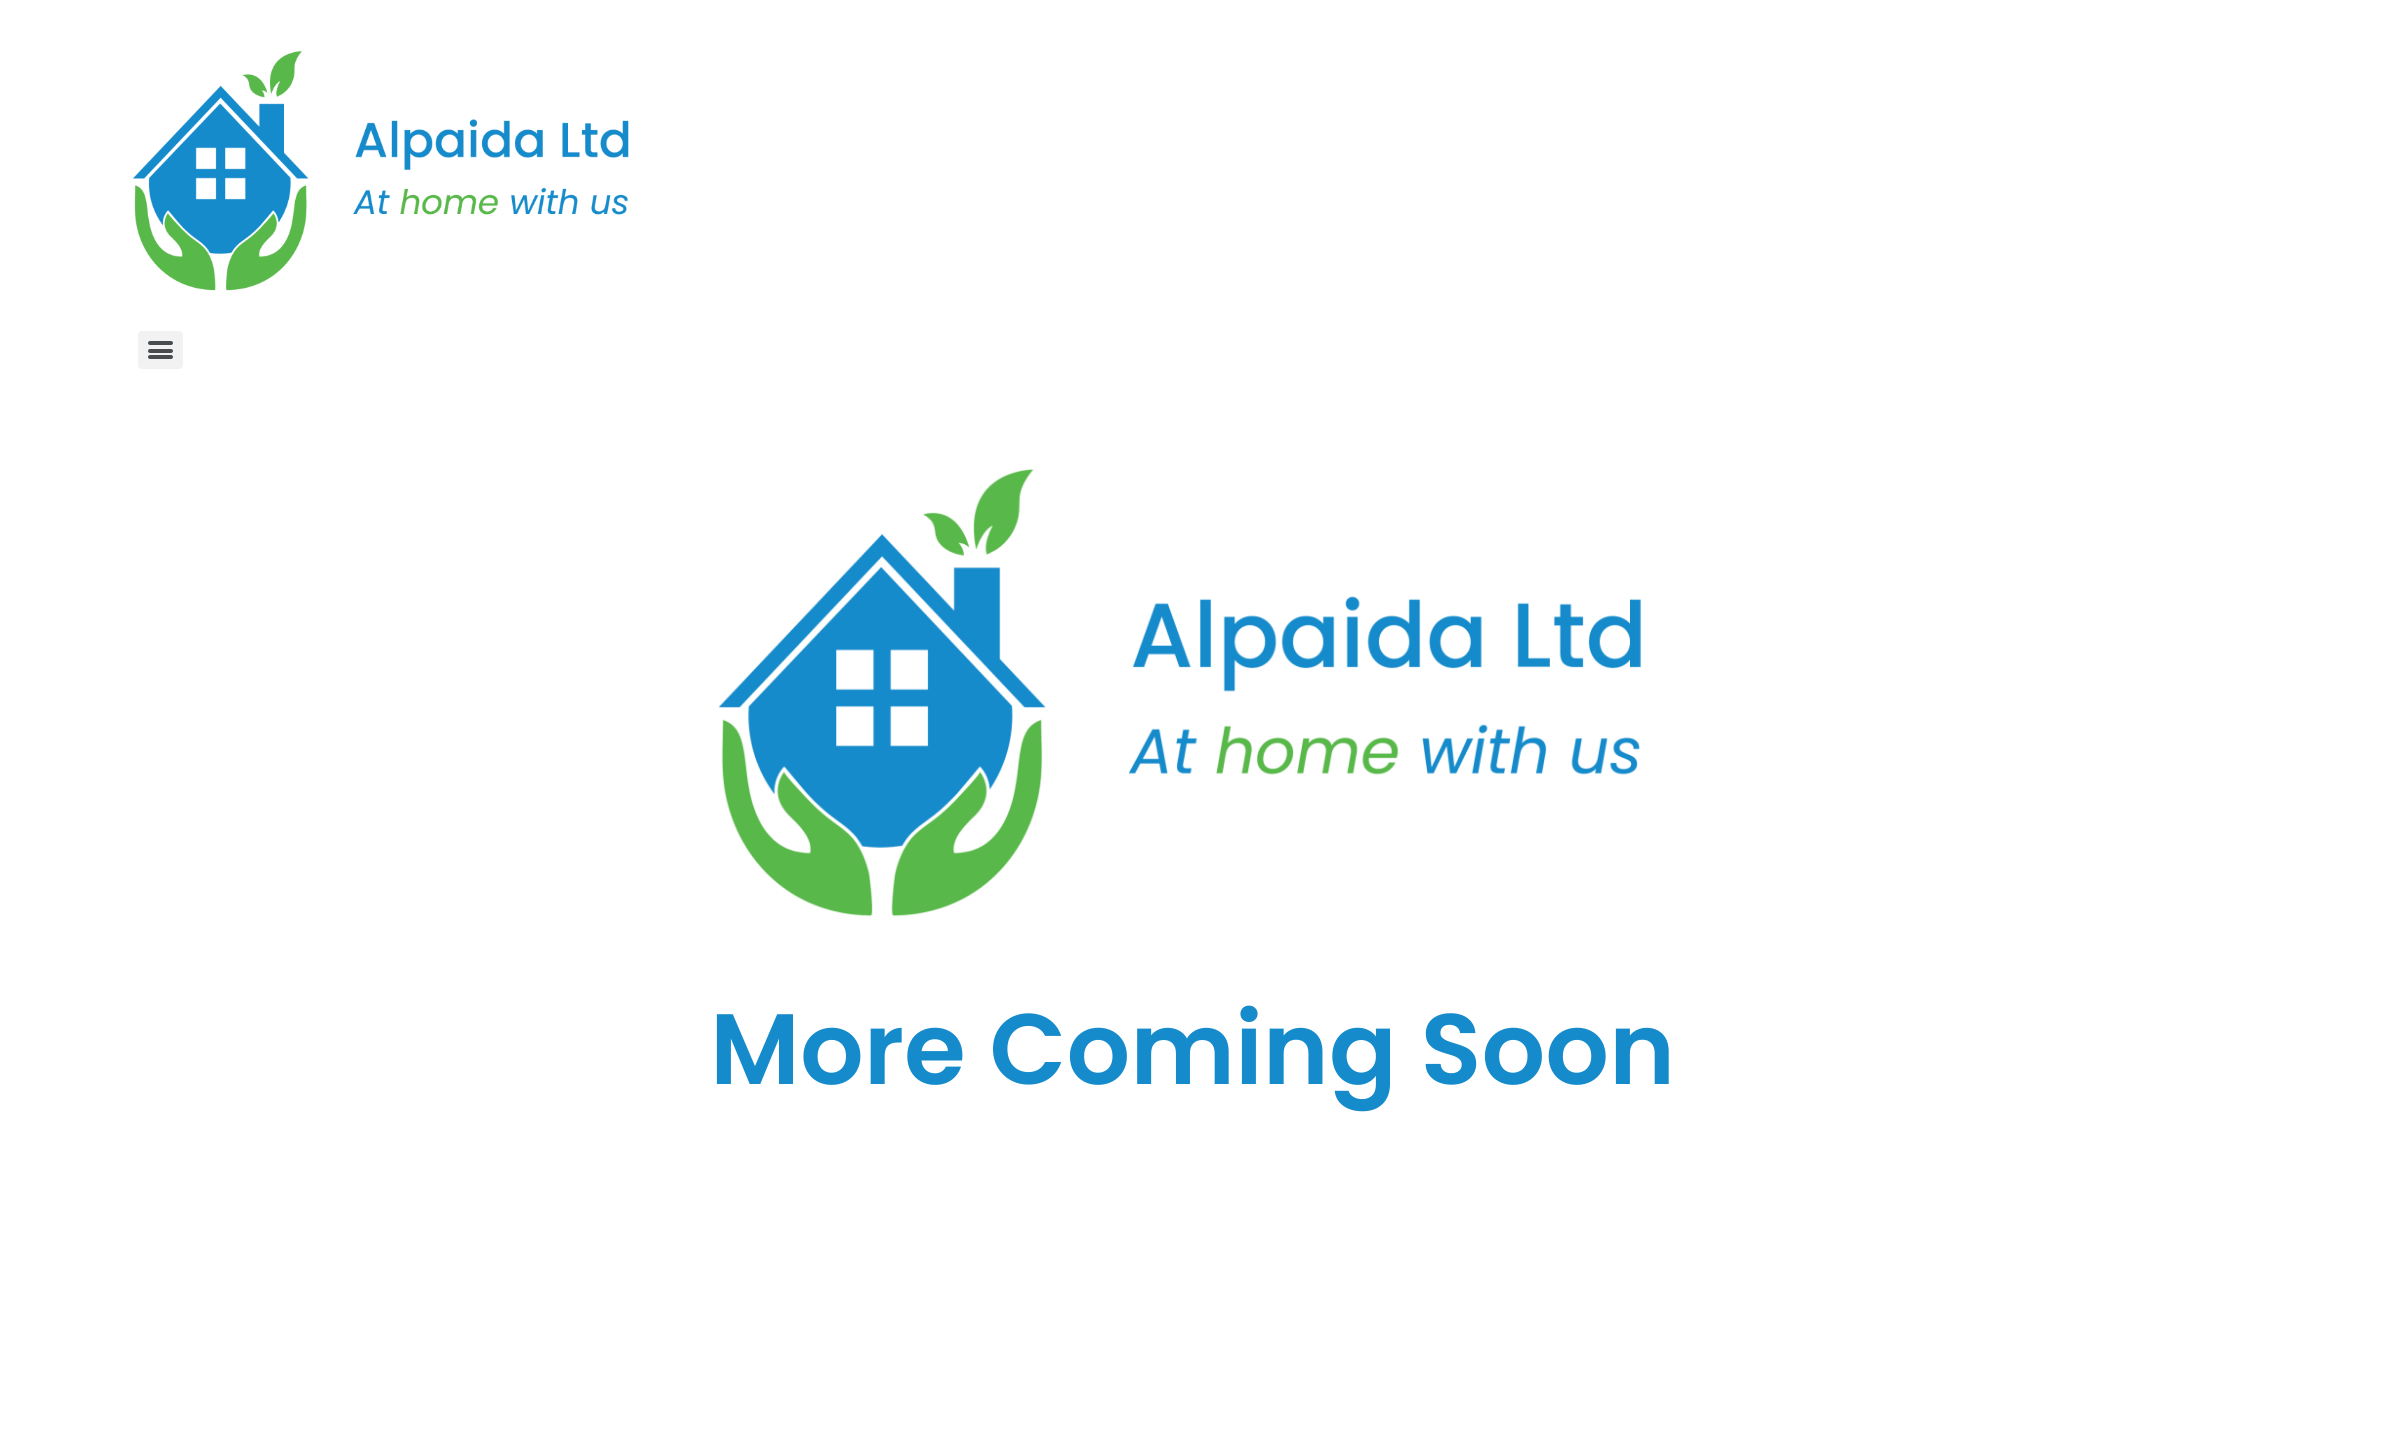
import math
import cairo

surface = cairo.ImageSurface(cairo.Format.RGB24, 2385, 1431)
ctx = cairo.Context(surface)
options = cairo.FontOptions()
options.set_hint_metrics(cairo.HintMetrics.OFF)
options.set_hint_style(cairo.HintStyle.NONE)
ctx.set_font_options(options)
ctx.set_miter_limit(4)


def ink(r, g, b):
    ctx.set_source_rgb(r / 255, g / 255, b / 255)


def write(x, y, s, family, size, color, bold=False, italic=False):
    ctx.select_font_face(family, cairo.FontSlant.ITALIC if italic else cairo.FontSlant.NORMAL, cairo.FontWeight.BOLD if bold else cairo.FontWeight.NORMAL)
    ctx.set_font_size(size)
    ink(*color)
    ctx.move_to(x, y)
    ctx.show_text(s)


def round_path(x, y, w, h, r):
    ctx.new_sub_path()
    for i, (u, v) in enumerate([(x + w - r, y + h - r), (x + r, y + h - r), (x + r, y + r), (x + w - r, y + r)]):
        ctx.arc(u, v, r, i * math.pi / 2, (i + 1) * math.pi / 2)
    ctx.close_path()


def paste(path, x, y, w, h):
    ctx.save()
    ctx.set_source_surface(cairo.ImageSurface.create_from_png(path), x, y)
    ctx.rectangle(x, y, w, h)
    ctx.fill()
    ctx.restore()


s1 = dict(family="Poppins SemiBold", size=100, color=(22, 139, 203))

ink(255, 255, 255)
ctx.paint()
paste("pic1.png", 132, 50, 497, 241)
ink(242, 242, 242)
round_path(138, 331, 45, 38, 4)
ctx.fill()
ink(73, 76, 79)
round_path(148, 349, 25, 4, 2)
ctx.fill()
round_path(148, 341, 25, 4, 2)
ctx.fill()
round_path(148, 355, 25, 4, 2)
ctx.fill()
paste("pic2.png", 718, 469, 924, 448)
write(710, 1084, "More Coming Soon", **s1)
surface.write_to_png("screenshot.png")
